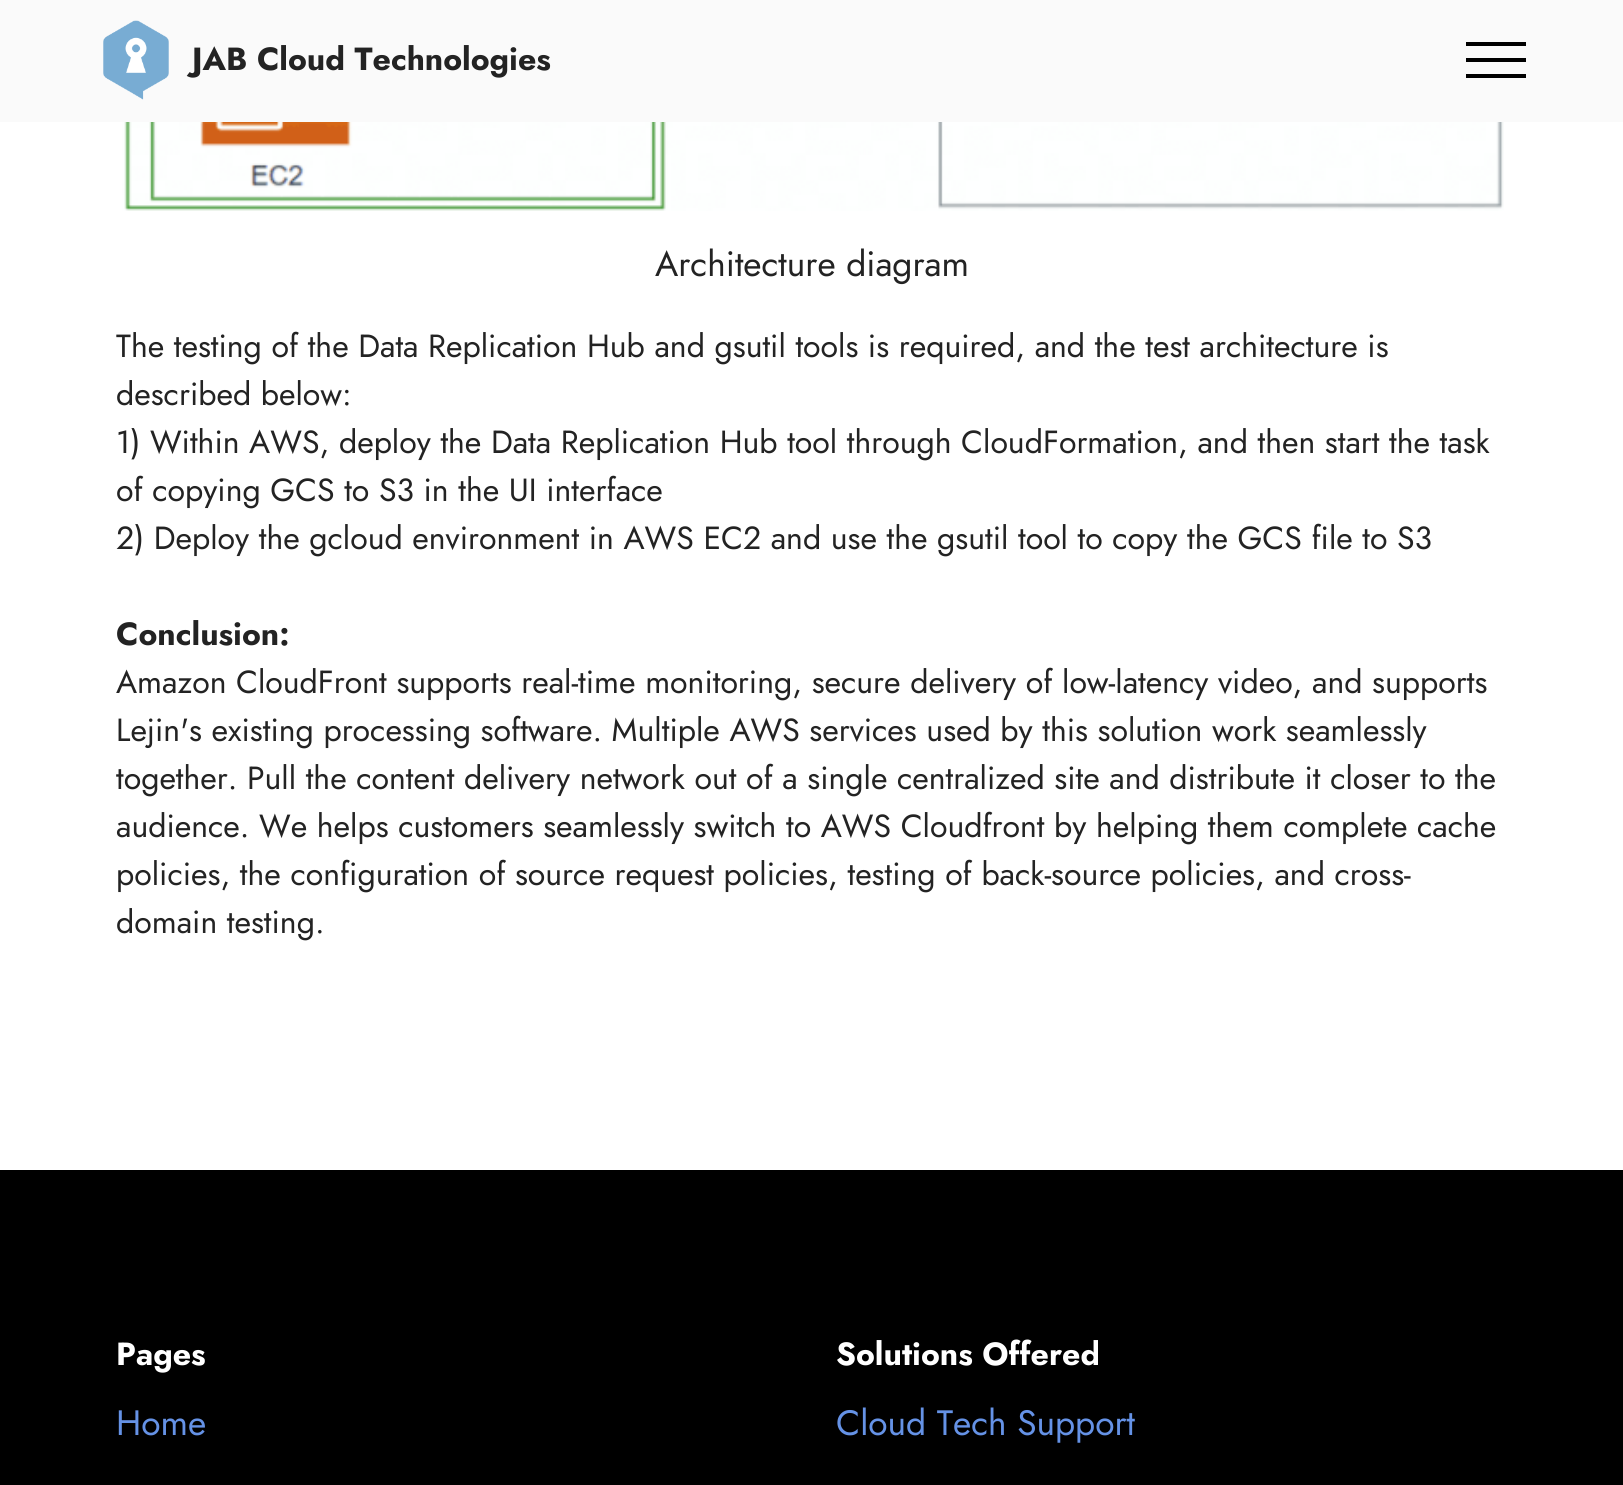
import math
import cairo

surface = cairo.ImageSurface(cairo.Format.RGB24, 1623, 1485)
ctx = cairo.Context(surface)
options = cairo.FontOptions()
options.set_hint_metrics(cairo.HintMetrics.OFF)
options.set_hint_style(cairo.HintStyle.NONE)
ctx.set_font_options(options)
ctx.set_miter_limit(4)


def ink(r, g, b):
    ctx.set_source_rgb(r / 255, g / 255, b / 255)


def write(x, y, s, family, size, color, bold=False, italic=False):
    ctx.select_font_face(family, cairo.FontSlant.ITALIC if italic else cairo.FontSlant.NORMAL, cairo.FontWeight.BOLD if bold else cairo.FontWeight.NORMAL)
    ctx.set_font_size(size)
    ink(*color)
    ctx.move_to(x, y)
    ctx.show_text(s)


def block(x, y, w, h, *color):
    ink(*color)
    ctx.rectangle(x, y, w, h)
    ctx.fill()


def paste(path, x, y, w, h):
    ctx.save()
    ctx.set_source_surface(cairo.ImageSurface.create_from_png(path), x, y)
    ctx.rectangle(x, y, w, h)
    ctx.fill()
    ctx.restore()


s1 = dict(family="Jost", size=32, color=(35, 35, 35), bold=True)
s2 = dict(family="Jost", size=35.25, color=(35, 35, 35))
s3 = dict(family="Jost", size=32, color=(35, 35, 35))
s4 = dict(family="Jost", size=32, color=(255, 255, 255), bold=True)
s5 = dict(family="Jost", size=35.25, color=(101, 146, 230))

ink(255, 255, 255)
ctx.paint()
block(0, 0, 1623, 122, 250, 250, 250)
paste("pic1.png", 103, 20, 66, 80)
write(192, 70, "JAB Cloud Technologies", **s1)
block(1466, 42, 60, 4, 0, 0, 0)
block(1466, 58, 60, 4, 0, 0, 0)
block(1466, 74, 60, 4, 0, 0, 0)
paste("pic2.png", 122, 122, 1382, 89)
write(655, 276, "Architecture diagram", **s2)
write(116, 357, "The testing of the Data Replication Hub and gsutil tools is required, and the test architecture is", **s3)
write(116, 405, "described below:", **s3)
write(116, 453, "1) Within AWS, deploy the Data Replication Hub tool through CloudFormation, and then start the task", **s3)
write(116, 501, "of copying GCS to S3 in the UI interface", **s3)
write(116, 549, "2) Deploy the gcloud environment in AWS EC2 and use the gsutil tool to copy the GCS file to S3", **s3)
write(116, 645, "Conclusion:", **s1)
write(116, 693, "Amazon CloudFront supports real-time monitoring, secure delivery of low-latency video, and supports", **s3)
write(116, 741, "Lejin's existing processing software. Multiple AWS services used by this solution work seamlessly", **s3)
write(116, 789, "together. Pull the content delivery network out of a single centralized site and distribute it closer to the", **s3)
write(116, 837, "audience. We helps customers seamlessly switch to AWS Cloudfront by helping them complete cache", **s3)
write(116, 885, "policies, the configuration of source request policies, testing of back-source policies, and cross-", **s3)
write(116, 933, "domain testing.", **s3)
block(0, 1170, 1623, 315, 0, 0, 0)
write(116, 1365, "Pages", **s4)
write(116, 1435, "Home", **s5)
write(836, 1365, "Solutions Offered", **s4)
write(836, 1435, "Cloud Tech Support", **s5)
surface.write_to_png("screenshot.png")
